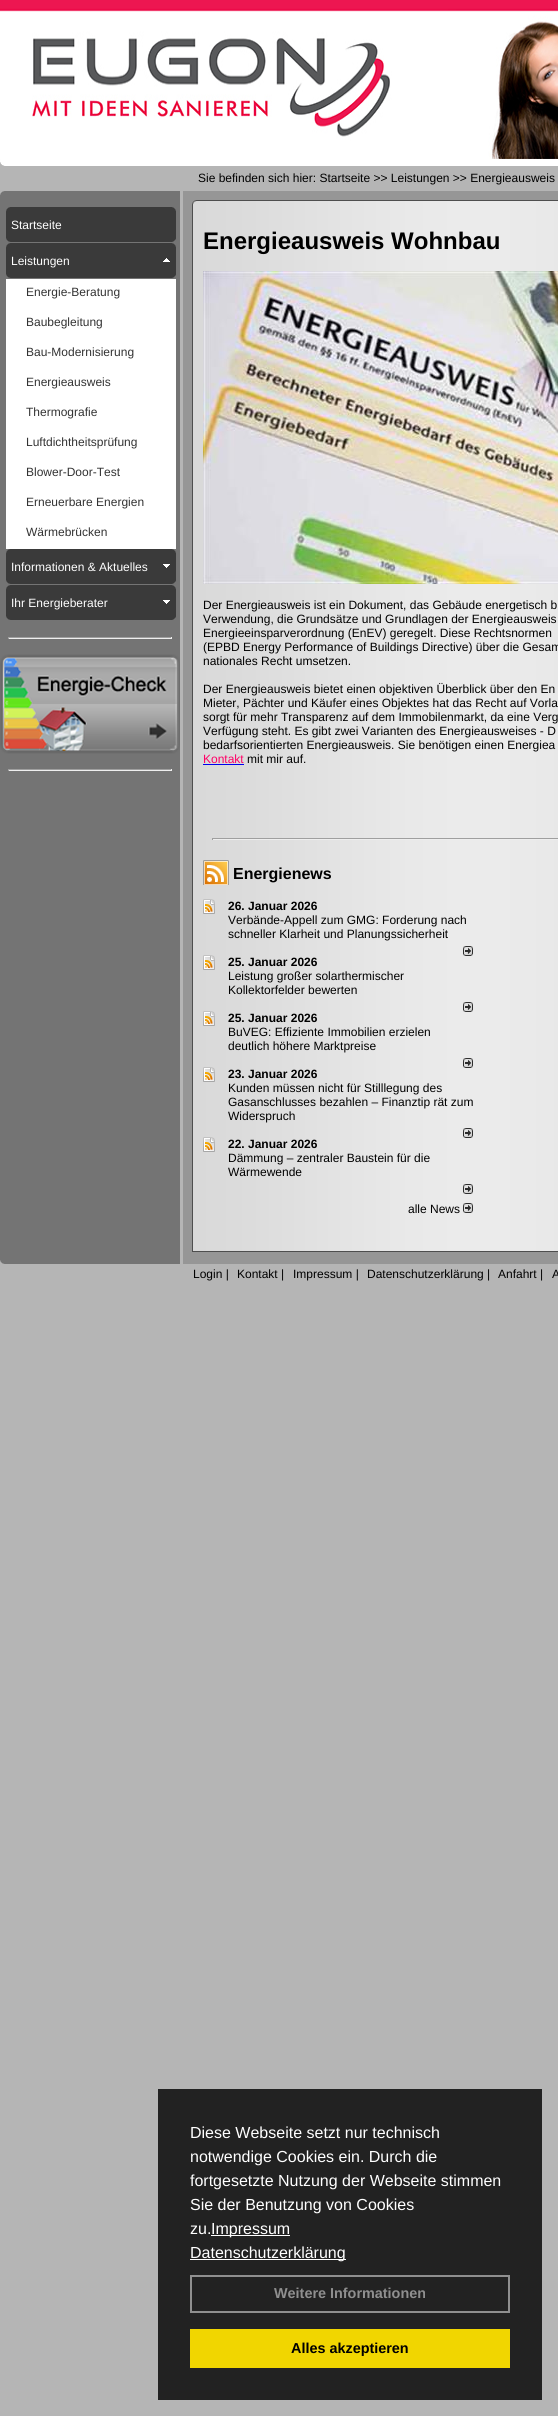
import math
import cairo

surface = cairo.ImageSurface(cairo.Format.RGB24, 558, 2416)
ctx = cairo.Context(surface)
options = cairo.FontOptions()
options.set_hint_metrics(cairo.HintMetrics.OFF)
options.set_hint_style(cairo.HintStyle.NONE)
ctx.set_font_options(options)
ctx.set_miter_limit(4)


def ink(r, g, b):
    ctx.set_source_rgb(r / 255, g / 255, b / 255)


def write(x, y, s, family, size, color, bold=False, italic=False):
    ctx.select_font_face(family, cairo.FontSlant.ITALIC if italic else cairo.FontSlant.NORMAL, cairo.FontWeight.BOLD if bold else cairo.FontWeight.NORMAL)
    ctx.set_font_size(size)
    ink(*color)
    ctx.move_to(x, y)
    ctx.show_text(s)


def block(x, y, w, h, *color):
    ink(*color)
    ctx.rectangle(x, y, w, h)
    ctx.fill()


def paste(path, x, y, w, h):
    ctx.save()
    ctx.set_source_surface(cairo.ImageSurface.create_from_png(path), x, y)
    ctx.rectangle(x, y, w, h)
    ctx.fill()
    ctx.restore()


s1 = dict(family="Liberation Sans", size=12, color=(0, 0, 0))
s2 = dict(family="Liberation Sans", size=12, color=(255, 255, 255))
s3 = dict(family="Liberation Sans", size=12, color=(51, 51, 51))
s4 = dict(family="Liberation Sans", size=24, color=(0, 0, 0), bold=True)
s5 = dict(family="Liberation Sans", size=12, color=(255, 0, 102))
s6 = dict(family="Liberation Sans", size=16, color=(0, 0, 0), bold=True)
s7 = dict(family="Liberation Sans", size=12, color=(0, 0, 0), bold=True)
s8 = dict(family="Liberation Sans", size=16, color=(255, 255, 255))
s9 = dict(family="Liberation Sans", size=14.4, color=(143, 143, 143), bold=True)
s10 = dict(family="Liberation Sans", size=14.4, color=(0, 0, 0), bold=True)

ink(181, 181, 181)
ctx.paint()
paste("pic1.png", 0, 0, 558, 159)
paste("pic2.png", 0, 159, 558, 7)
write(198, 182, "Sie befinden sich hier: Startseite >> Leistungen >> Energieausweis", **s1)
paste("pic3.png", 0, 191, 180, 15)
paste("pic4.png", 183, 191, 375, 15)
block(0, 206, 180, 1043, 116, 116, 116)
paste("pic5.png", 6, 207, 170, 35)
write(11, 229, "Startseite", **s2)
paste("pic5.png", 6, 243, 170, 35)
write(11, 265, "Leistungen", **s2)
paste("pic6.png", 163, 258, 7, 4)
block(6, 279, 170, 270, 255, 255, 255)
write(26, 296, "Energie-Beratung", **s3)
write(26, 326, "Baubegleitung", **s3)
write(26, 356, "Bau-Modernisierung", **s3)
write(26, 386, "Energieausweis", **s3)
write(26, 416, "Thermografie", **s3)
write(26, 446, "Luftdichtheitsprüfung", **s3)
write(26, 476, "Blower-Door-Test", **s3)
write(26, 506, "Erneuerbare Energien", **s3)
write(26, 536, "Wärmebrücken", **s3)
paste("pic5.png", 6, 549, 170, 35)
write(11, 571, "Informationen & Aktuelles", **s2)
paste("pic7.png", 163, 564, 7, 4)
paste("pic5.png", 6, 585, 170, 35)
write(11, 607, "Ihr Energieberater", **s2)
paste("pic7.png", 163, 600, 7, 4)
block(8, 637, 164, 1, 159, 159, 159)
block(171, 637, 1, 2, 238, 238, 238)
block(8, 638, 164, 1, 238, 238, 238)
block(8, 637, 1, 2, 159, 159, 159)
paste("pic8.png", 0, 654, 180, 100)
block(8, 769, 164, 1, 159, 159, 159)
block(171, 769, 1, 2, 238, 238, 238)
block(8, 770, 164, 1, 238, 238, 238)
block(8, 769, 1, 2, 159, 159, 159)
paste("pic9.png", 183, 206, 375, 1043)
write(203, 249, "Energieausweis Wohnbau", **s4)
paste("pic10.png", 203, 271, 355, 313)
write(203, 609, "Der Energieausweis ist ein Dokument, das Gebäude energetisch b", **s1)
write(203, 623, "Verwendung, die Grundsätze und Grundlagen der Energieausweis", **s1)
write(203, 637, "Energieeinsparverordnung (EnEV) geregelt. Diese Rechtsnormen", **s1)
write(203, 651, "(EPBD Energy Performance of Buildings Directive) über die Gesam", **s1)
write(203, 665, "nationales Recht umsetzen.", **s1)
write(203, 693, "Der Energieausweis bietet einen objektiven Überblick über den En", **s1)
write(203, 707, "Mieter, Pächter und Käufer eines Objektes hat das Recht auf Vorla", **s1)
write(203, 721, "sorgt für mehr Transparenz auf dem Immobilenmarkt, da eine Verg", **s1)
write(203, 735, "Verfügung steht. Es gibt zwei Varianten des Energieausweises - D", **s1)
write(203, 749, "bedarfsorientierten Energieausweis. Sie benötigen einen Energiea", **s1)
write(203, 763, "Kontakt", **s5)
block(203, 764, 41, 1, 0, 0, 238)
write(247, 763, "mit mir auf.", **s1)
block(212, 838, 346, 1, 159, 159, 159)
block(212, 839, 346, 1, 238, 238, 238)
block(212, 838, 1, 2, 159, 159, 159)
paste("pic11.png", 203, 860, 26, 25)
write(233, 879, "Energienews", **s6)
paste("pic12.png", 203, 899, 12, 15)
write(228, 910, "26. Januar 2026", **s7)
write(228, 924, "Verbände-Appell zum GMG: Forderung nach", **s1)
write(228, 938, "schneller Klarheit und Planungssicherheit", **s1)
paste("pic13.png", 463, 946, 10, 10)
paste("pic12.png", 203, 955, 12, 15)
write(228, 966, "25. Januar 2026", **s7)
write(228, 980, "Leistung großer solarthermischer", **s1)
write(228, 994, "Kollektorfelder bewerten", **s1)
paste("pic13.png", 463, 1002, 10, 10)
paste("pic12.png", 203, 1011, 12, 15)
write(228, 1022, "25. Januar 2026", **s7)
write(228, 1036, "BuVEG: Effiziente Immobilien erzielen", **s1)
write(228, 1050, "deutlich höhere Marktpreise", **s1)
paste("pic13.png", 463, 1058, 10, 10)
paste("pic12.png", 203, 1067, 12, 15)
write(228, 1078, "23. Januar 2026", **s7)
write(228, 1092, "Kunden müssen nicht für Stilllegung des", **s1)
write(228, 1106, "Gasanschlusses bezahlen – Finanztip rät zum", **s1)
write(228, 1120, "Widerspruch", **s1)
paste("pic13.png", 463, 1128, 10, 10)
paste("pic12.png", 203, 1137, 12, 15)
write(228, 1148, "22. Januar 2026", **s7)
write(228, 1162, "Dämmung – zentraler Baustein für die", **s1)
write(228, 1176, "Wärmewende", **s1)
paste("pic13.png", 463, 1184, 10, 10)
write(408, 1213, "alle News", **s1)
paste("pic13.png", 463, 1203, 10, 10)
paste("pic14.png", 0, 1249, 180, 15)
paste("pic15.png", 183, 1249, 375, 15)
write(193, 1278, "Login |", **s1)
write(237, 1278, "Kontakt |", **s1)
write(293, 1278, "Impressum |", **s1)
write(367, 1278, "Datenschutzerklärung |", **s1)
write(498, 1278, "Anfahrt |", **s1)
write(552, 1278, "A", **s1)
block(158, 2089, 384, 311, 34, 34, 34)
write(190, 2138, "Diese Webseite setzt nur technisch", **s8)
write(190, 2162, "notwendige Cookies ein. Durch die", **s8)
write(190, 2186, "fortgesetzte Nutzung der Webseite stimmen", **s8)
write(190, 2210, "Sie der Benutzung von Cookies", **s8)
write(190, 2234, "zu.", **s8)
block(211, 2235, 79, 1, 255, 255, 255)
write(211, 2234, "Impressum", **s8)
block(190, 2259, 156, 1, 255, 255, 255)
write(190, 2258, "Datenschutzerklärung", **s8)
ctx.rectangle(191, 2276, 318, 36)
ink(143, 143, 143)
ctx.stroke()
write(274, 2298, "Weitere Informationen", **s9)
block(190, 2329, 320, 39, 241, 214, 0)
write(291, 2353, "Alles akzeptieren", **s10)
surface.write_to_png("screenshot.png")
